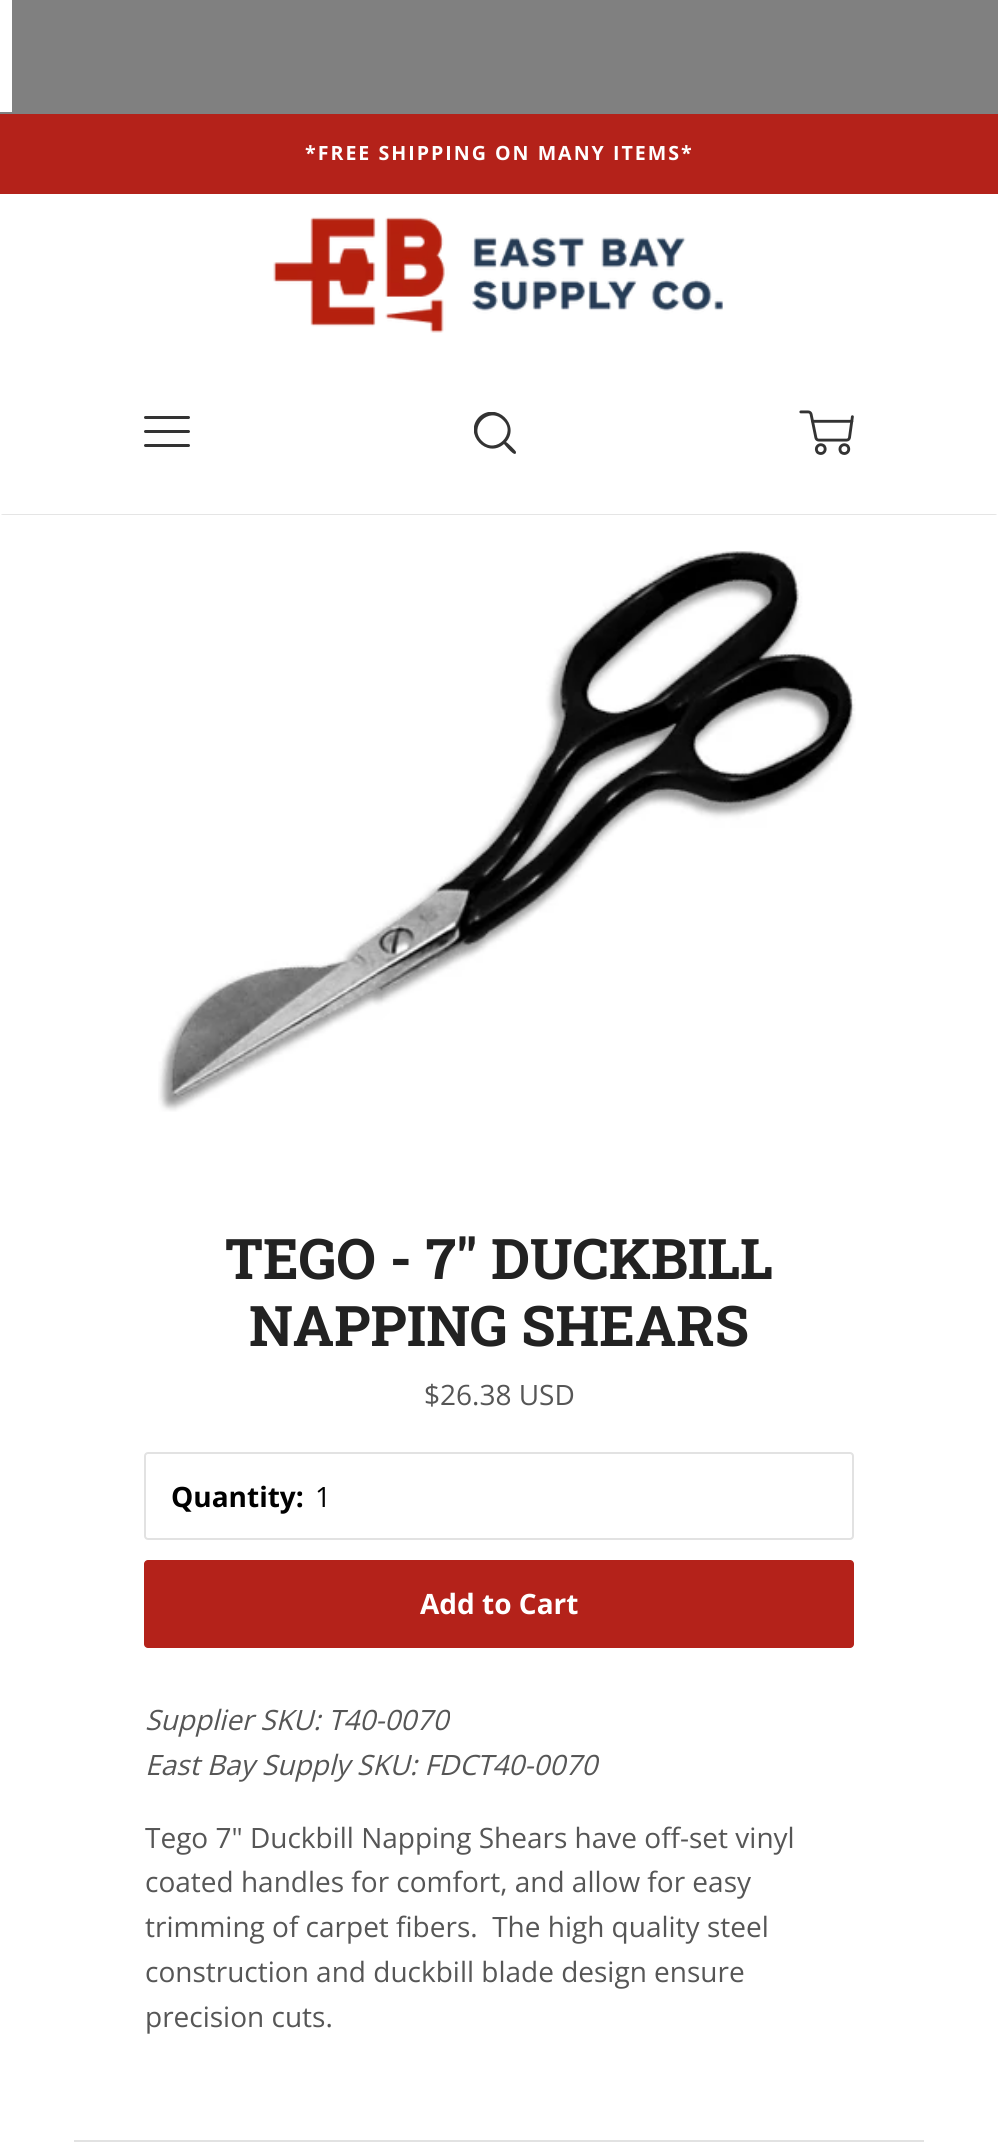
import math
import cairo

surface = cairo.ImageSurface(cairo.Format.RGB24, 998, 2152)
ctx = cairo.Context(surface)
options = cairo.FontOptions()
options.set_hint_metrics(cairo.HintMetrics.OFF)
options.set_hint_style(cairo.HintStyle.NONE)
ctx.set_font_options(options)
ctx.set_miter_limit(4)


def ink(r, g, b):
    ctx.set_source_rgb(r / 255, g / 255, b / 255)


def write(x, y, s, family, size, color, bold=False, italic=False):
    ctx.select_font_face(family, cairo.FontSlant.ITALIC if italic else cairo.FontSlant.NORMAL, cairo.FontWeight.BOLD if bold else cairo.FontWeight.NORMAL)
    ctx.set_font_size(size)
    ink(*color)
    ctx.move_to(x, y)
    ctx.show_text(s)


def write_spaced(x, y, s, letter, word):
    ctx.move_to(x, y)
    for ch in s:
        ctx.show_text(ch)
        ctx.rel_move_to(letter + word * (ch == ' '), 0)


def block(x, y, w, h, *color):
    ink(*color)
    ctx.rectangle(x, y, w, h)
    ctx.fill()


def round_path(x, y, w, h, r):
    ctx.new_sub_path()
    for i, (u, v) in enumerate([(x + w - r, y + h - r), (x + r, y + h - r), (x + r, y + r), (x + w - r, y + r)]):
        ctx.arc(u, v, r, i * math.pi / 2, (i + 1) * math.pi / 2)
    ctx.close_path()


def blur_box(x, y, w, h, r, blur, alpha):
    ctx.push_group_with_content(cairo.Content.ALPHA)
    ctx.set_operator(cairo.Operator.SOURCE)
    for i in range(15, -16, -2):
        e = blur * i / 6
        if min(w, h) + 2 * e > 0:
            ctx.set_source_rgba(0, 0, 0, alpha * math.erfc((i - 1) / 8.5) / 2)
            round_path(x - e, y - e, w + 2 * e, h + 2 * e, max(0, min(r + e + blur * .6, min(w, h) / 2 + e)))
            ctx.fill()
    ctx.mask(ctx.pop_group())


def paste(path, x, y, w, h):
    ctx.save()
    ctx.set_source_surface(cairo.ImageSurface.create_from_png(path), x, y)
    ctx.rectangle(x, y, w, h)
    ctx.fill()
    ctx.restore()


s1 = dict(family="Roboto Slab", size=56, color=(34, 34, 34), bold=True)
s2 = dict(family="Open Sans", size=28, color=(86, 86, 86))
s3 = dict(family="Open Sans", size=28, color=(0, 0, 0), bold=True)
s4 = dict(family="Open Sans", size=28, color=(0, 0, 0))
s5 = dict(family="Open Sans", size=28, color=(255, 255, 255), bold=True)
s6 = dict(family="Open Sans", size=28, color=(86, 86, 86), italic=True)

ink(255, 255, 255)
ctx.paint()
block(0, 0, 998, 114, 128, 128, 128)
block(0, 0, 12, 112, 255, 255, 255)
block(0, 114, 998, 80, 180, 34, 26)
ctx.select_font_face("Open Sans", cairo.FontSlant.NORMAL, cairo.FontWeight.BOLD)
ctx.set_font_size(19.6)
ink(255, 255, 255)
write_spaced(305, 160, "*FREE SHIPPING ON MANY ITEMS*", 2, 0)
paste("pic1.png", 273, 217, 450, 116)
ctx.save()
ctx.rectangle(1, 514, 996, 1)
ctx.clip()
ink(0, 0, 0)
blur_box(2, 358, 994, 156, 0, 1, 0.3)
ctx.restore()
ink(51, 51, 51)
round_path(144, 416, 46, 3, 1.5)
ctx.fill()
round_path(144, 430, 46, 3, 1.5)
ctx.fill()
round_path(144, 444, 46, 3, 1.5)
ctx.fill()
ctx.save()
ctx.rectangle(474, 412, 42, 42)
ctx.clip()
ctx.new_path()
ctx.move_to(516, 452)
ctx.curve_to(516, 451, 508, 443, 506, 442)
ctx.curve_to(521, 425, 496, 401, 479, 417)
ctx.curve_to(463, 434, 487, 459, 504, 444)
ctx.curve_to(505, 445, 516, 459, 516, 452)
ctx.close_path()
ctx.move_to(503, 420)
ctx.curve_to(517, 433, 496, 455, 482, 441)
ctx.curve_to(468, 427, 489, 406, 503, 420)
ctx.close_path()
ctx.fill()
ctx.restore()
paste("pic2.png", 799, 410, 55, 45)
block(74, 2140, 850, 2, 226, 226, 226)
paste("pic3.png", 158, 550, 698, 562)
write(225, 1279, "TEGO - 7\" DUCKBILL", **s1)
write(249, 1346, "NAPPING SHEARS", **s1)
write(424, 1405, "$26.38 USD", **s2)
round_path(145, 1453, 708, 86, 3)
ink(226, 226, 226)
ctx.stroke()
write(171, 1507, "Quantity:", **s3)
write(315, 1507, "1", **s4)
ink(180, 34, 26)
round_path(144, 1560, 710, 88, 4)
ctx.fill()
write(420, 1614, "Add to Cart", **s5)
write(145, 1730, "Supplier SKU: T40-0070", **s6)
write(145, 1775, "East Bay Supply SKU: FDCT40-0070", **s6)
write(145, 1848, "Tego 7\" Duckbill Napping Shears have off-set vinyl", **s2)
write(145, 1892, "coated handles for comfort, and allow for easy", **s2)
write(145, 1937, "trimming of carpet fibers.  The high quality steel", **s2)
write(145, 1982, "construction and duckbill blade design ensure", **s2)
write(145, 2027, "precision cuts.", **s2)
surface.write_to_png("screenshot.png")
